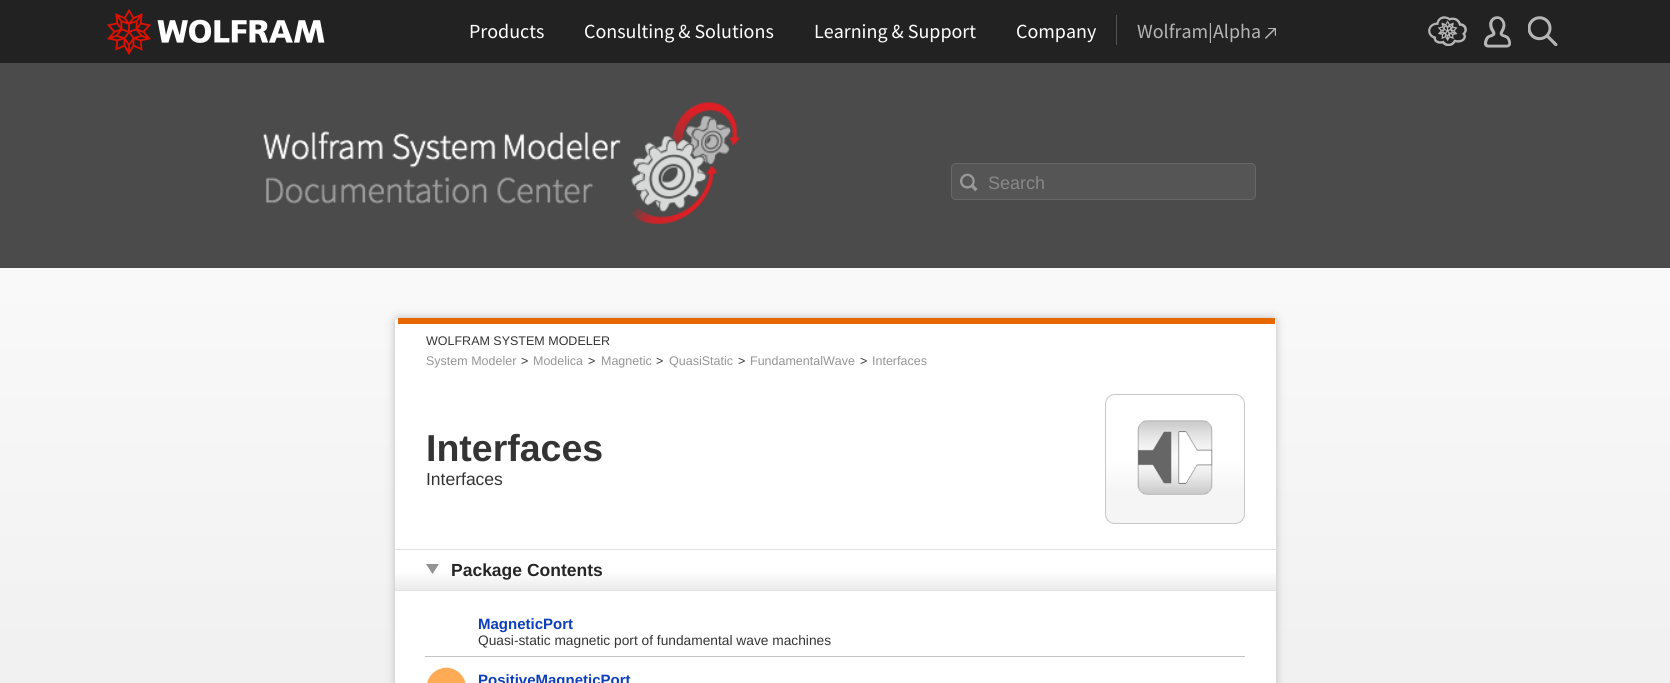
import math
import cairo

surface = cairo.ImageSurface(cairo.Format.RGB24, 1670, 683)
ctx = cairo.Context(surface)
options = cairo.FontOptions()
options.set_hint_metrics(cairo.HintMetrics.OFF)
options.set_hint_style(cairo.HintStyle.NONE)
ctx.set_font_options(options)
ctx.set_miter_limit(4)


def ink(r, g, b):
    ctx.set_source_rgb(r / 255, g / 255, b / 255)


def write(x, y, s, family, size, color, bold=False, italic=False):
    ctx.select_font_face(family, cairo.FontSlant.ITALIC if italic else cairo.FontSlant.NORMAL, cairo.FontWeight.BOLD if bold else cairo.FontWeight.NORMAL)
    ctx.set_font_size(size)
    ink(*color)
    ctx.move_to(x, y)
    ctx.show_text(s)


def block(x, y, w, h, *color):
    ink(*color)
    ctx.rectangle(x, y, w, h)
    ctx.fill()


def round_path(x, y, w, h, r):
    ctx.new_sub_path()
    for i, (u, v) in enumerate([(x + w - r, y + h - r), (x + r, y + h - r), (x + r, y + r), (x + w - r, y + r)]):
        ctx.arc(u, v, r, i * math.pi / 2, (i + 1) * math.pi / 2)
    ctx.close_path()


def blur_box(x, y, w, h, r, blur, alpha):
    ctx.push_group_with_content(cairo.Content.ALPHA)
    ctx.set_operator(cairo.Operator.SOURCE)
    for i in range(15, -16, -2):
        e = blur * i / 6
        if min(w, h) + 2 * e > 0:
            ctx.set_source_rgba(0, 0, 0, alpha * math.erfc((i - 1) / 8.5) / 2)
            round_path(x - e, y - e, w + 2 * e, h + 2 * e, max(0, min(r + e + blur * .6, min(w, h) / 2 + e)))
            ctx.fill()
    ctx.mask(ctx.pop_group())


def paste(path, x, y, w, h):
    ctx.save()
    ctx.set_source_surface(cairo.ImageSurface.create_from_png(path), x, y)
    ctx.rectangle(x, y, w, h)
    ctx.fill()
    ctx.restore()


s1 = dict(family="Source Sans Pro", size=20, color=(255, 255, 255))
s2 = dict(family="Source Sans Pro", size=20, color=(181, 181, 181))
s3 = dict(family="Liberation Sans", size=18, color=(136, 136, 136))
s4 = dict(family="Liberation Sans", size=12.5, color=(52, 52, 52))
s5 = dict(family="Liberation Sans", size=12.5, color=(149, 149, 149))
s6 = dict(family="Liberation Sans", size=37.5, color=(52, 52, 52), bold=True)
s7 = dict(family="Liberation Sans", size=17.5, color=(52, 52, 52))
s8 = dict(family="Liberation Sans", size=17.5, color=(38, 38, 38), bold=True)
s9 = dict(family="Liberation Sans", size=15, color=(14, 62, 185), bold=True)
s10 = dict(family="Liberation Sans", size=13.75, color=(52, 52, 52))

ink(255, 255, 255)
ctx.paint()
gradient = cairo.LinearGradient(835, 0, 835, 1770)
gradient.add_color_stop_rgba(0, 1, 1, 1, 1)
gradient.add_color_stop_rgba(0.37, 0.945, 0.945, 0.945, 1)
ctx.set_source(gradient)
ctx.rectangle(0, 268, 1670, 415)
ctx.fill()
block(0, 0, 1670, 63, 34, 34, 34)
paste("pic1.png", 107, 9, 218, 46)
write(469, 38, "Products", **s1)
write(584, 38, "Consulting & Solutions", **s1)
write(814, 38, "Learning & Support", **s1)
write(1016, 38, "Company", **s1)
block(1116, 15, 1, 30, 82, 82, 82)
write(1137, 38, "Wolfram|Alpha", **s2)
paste("pic2.png", 1265, 28, 11, 11)
paste("pic3.png", 1428, 16, 39, 30)
paste("pic4.png", 1484, 16, 27, 32)
paste("pic5.png", 1528, 16, 30, 30)
block(0, 63, 1670, 205, 75, 75, 75)
paste("pic6.png", 262, 102, 478, 122)
ink(85, 85, 85)
round_path(951.5, 163.5, 304, 36, 4.5)
ctx.fill_preserve()
ink(103, 103, 103)
ctx.set_line_width(1)
ctx.stroke()
paste("pic7.png", 960, 173, 18, 19)
write(988, 189, "Search", **s3)
ink(187, 187, 187)
blur_box(395, 318, 881, 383, 4, 4.5, 1)
ink(255, 255, 255)
round_path(395, 318, 881, 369, 4)
ctx.fill()
block(398, 318, 877, 6, 231, 104, 1)
write(426, 345, "WOLFRAM SYSTEM MODELER", **s4)
write(426, 365, "System Modeler", **s5)
write(521, 365, ">", **s4)
write(533, 365, "Modelica", **s5)
write(588, 365, ">", **s4)
write(601, 365, "Magnetic", **s5)
write(656, 365, ">", **s4)
write(669, 365, "QuasiStatic", **s5)
write(738, 365, ">", **s4)
write(750, 365, "FundamentalWave", **s5)
write(860, 365, ">", **s4)
write(872, 365, "Interfaces", **s5)
write(426, 461, "Interfaces", **s6)
write(426, 485, "Interfaces", **s7)
ctx.save()
round_path(1105, 394, 140, 130, 10)
ctx.clip()
gradient = cairo.LinearGradient(1175, 395, 1175, 523)
gradient.add_color_stop_rgba(0.5, 1, 1, 1, 1)
gradient.add_color_stop_rgba(0.75, 0.961, 0.961, 0.961, 1)
ctx.set_source(gradient)
ctx.rectangle(1105, 395, 140, 128)
ctx.fill()
ctx.restore()
round_path(1105.5, 394.5, 139, 129, 9.5)
ink(199, 199, 199)
ctx.stroke()
paste("pic8.png", 1137, 420, 76, 75)
gradient = cairo.LinearGradient(836, 550, 836, 590)
gradient.add_color_stop_rgba(0.5, 1, 1, 1, 1)
gradient.add_color_stop_rgba(1, 0.925, 0.925, 0.925, 1)
ctx.set_source(gradient)
ctx.rectangle(395, 573, 881, 17)
ctx.fill()
block(395, 549, 881, 1, 225, 225, 225)
block(395, 590, 881, 1, 225, 225, 225)
ink(147, 147, 147)
ctx.new_path()
ctx.move_to(426, 564)
ctx.line_to(439, 564)
ctx.line_to(432.5, 574)
ctx.close_path()
ctx.fill()
write(451, 576, "Package Contents", **s8)
block(425, 656, 820, 1, 196, 196, 196)
write(478, 629, "MagneticPort", **s9)
write(478, 645, "Quasi-static magnetic port of fundamental wave machines", **s10)
paste("pic9.png", 427, 667, 39, 16)
write(478, 685, "PositiveMagneticPort", **s9)
surface.write_to_png("screenshot.png")
